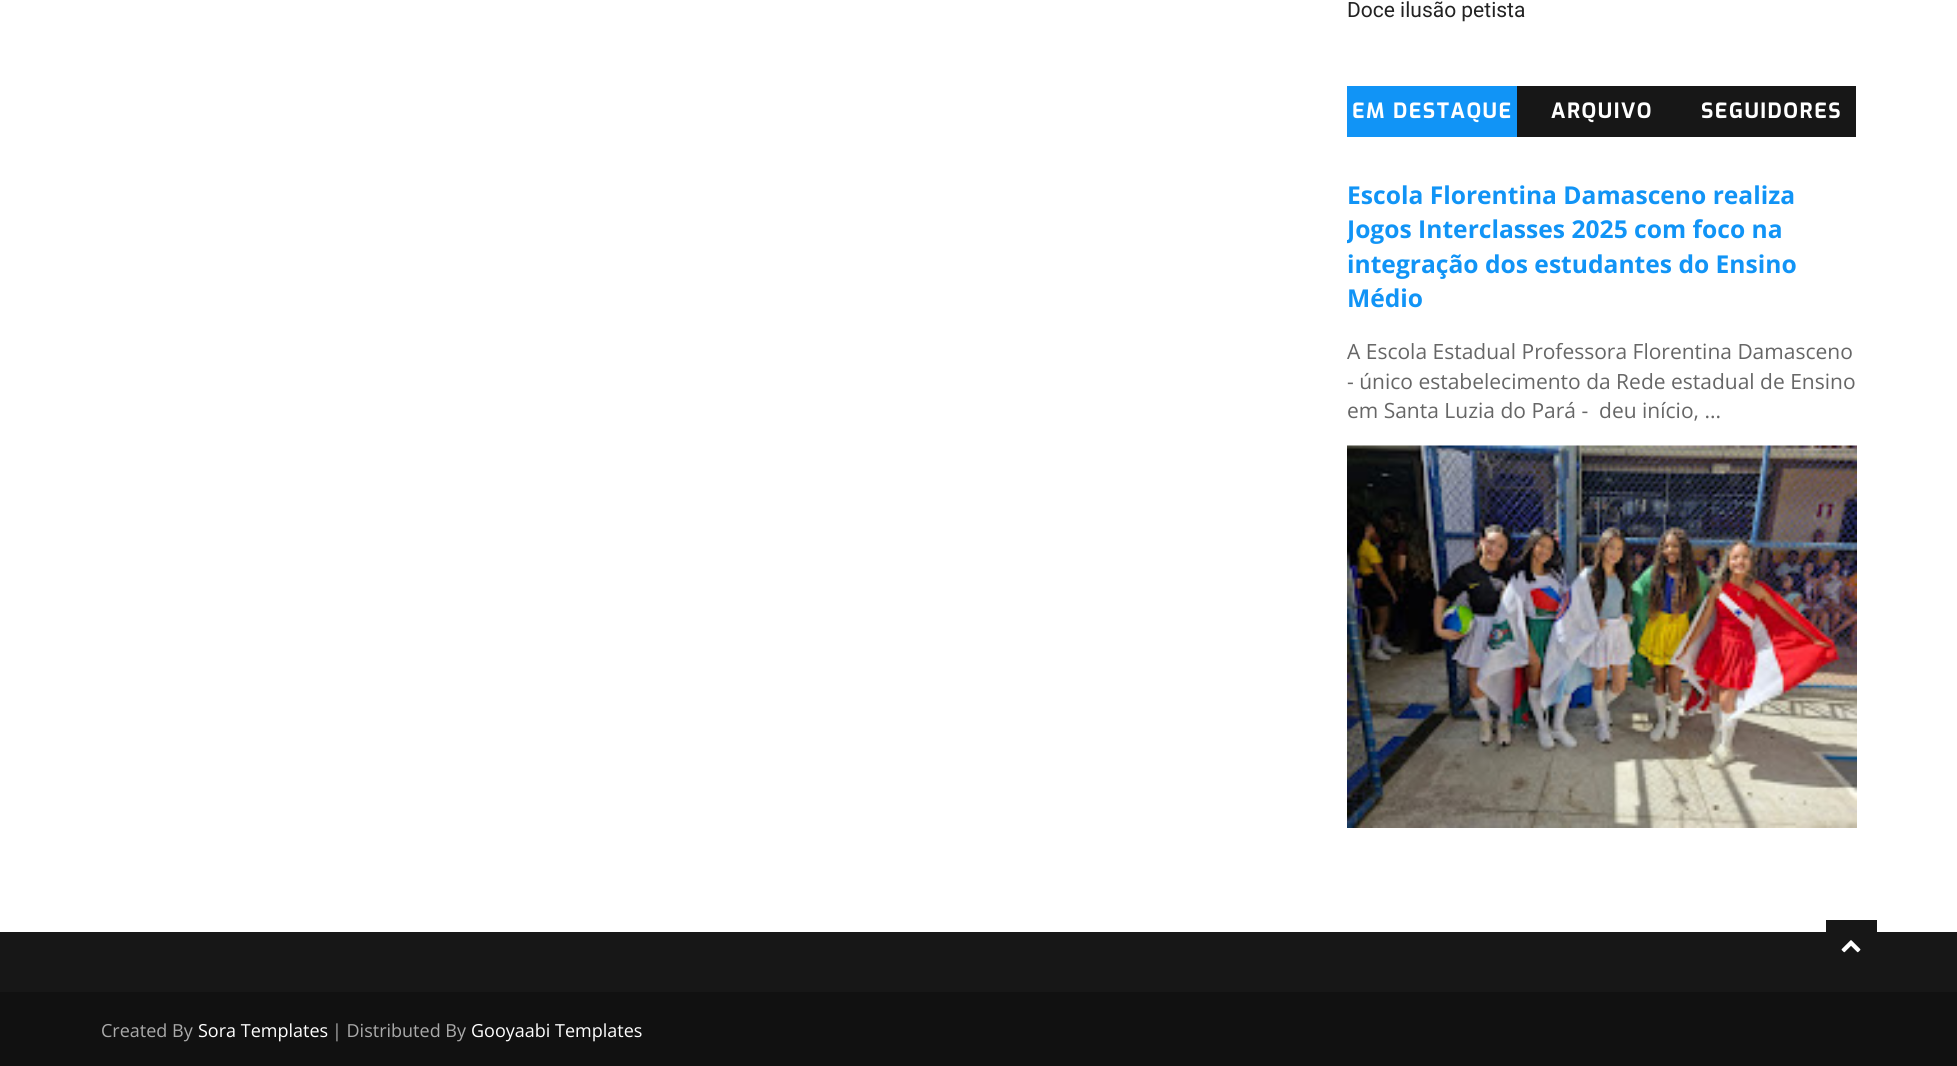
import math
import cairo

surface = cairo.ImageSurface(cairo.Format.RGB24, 1957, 1066)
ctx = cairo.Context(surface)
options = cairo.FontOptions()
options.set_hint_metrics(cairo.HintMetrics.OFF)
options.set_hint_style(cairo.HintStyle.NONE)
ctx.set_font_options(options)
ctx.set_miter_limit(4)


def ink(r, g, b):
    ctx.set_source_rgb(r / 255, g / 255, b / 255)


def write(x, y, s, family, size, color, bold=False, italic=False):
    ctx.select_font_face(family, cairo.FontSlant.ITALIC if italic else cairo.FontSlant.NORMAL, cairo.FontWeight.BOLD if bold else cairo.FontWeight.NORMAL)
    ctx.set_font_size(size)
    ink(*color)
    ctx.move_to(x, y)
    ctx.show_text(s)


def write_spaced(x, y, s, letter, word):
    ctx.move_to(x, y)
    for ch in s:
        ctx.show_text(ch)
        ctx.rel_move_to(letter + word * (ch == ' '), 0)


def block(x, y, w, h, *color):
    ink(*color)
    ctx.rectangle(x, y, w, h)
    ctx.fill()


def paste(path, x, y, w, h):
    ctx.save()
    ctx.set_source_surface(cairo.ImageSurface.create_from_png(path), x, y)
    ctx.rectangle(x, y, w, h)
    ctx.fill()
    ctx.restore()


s1 = dict(family="Roboto", size=21, color=(34, 34, 34))
s2 = dict(family="Open Sans", size=24.6, color=(17, 148, 246), bold=True)
s3 = dict(family="Open Sans", size=21, color=(102, 102, 102))
s4 = dict(family="Open Sans", size=18, color=(170, 170, 170))
s5 = dict(family="Open Sans", size=18, color=(255, 255, 255))

ink(255, 255, 255)
ctx.paint()
write(1347, 17, "Doce ilusão petista", **s1)
block(1347, 86, 170, 51, 17, 148, 246)
ctx.select_font_face("Exo", cairo.FontSlant.NORMAL, cairo.FontWeight.BOLD)
ink(255, 255, 255)
write_spaced(1352, 118, "EM DESTAQUE", 1.5, 0)
block(1517, 86, 339, 51, 23, 23, 23)
ink(255, 255, 255)
write_spaced(1551, 118, "ARQUIVO", 1.5, 0)
write_spaced(1701, 118, "SEGUIDORES", 1.5, 0)
write(1347, 204, "Escola Florentina Damasceno realiza", **s2)
ctx.save()
ctx.rectangle(1347, 167, 510, 667)
ctx.clip()
write(1347, 238, "Jogos Interclasses 2025 com foco na", **s2)
ctx.restore()
write(1347, 273, "integração dos estudantes do Ensino", **s2)
write(1347, 307, "Médio", **s2)
write(1347, 359, "A Escola Estadual Professora Florentina Damasceno", **s3)
write(1347, 389, "- único estabelecimento da Rede estadual de Ensino", **s3)
write(1347, 418, "em Santa Luzia do Pará -  deu início, ...", **s3)
paste("pic1.png", 1347, 445, 510, 383)
block(1826, 920, 51, 12, 23, 23, 23)
block(0, 932, 1957, 60, 23, 23, 23)
paste("pic2.png", 1841, 940, 20, 13)
block(0, 992, 1957, 74, 17, 17, 17)
write(101, 1037, "Created By", **s4)
write(198, 1037, "Sora Templates", **s5)
write(332, 1037, "| Distributed By", **s4)
write(471, 1037, "Gooyaabi Templates", **s5)
surface.write_to_png("screenshot.png")
